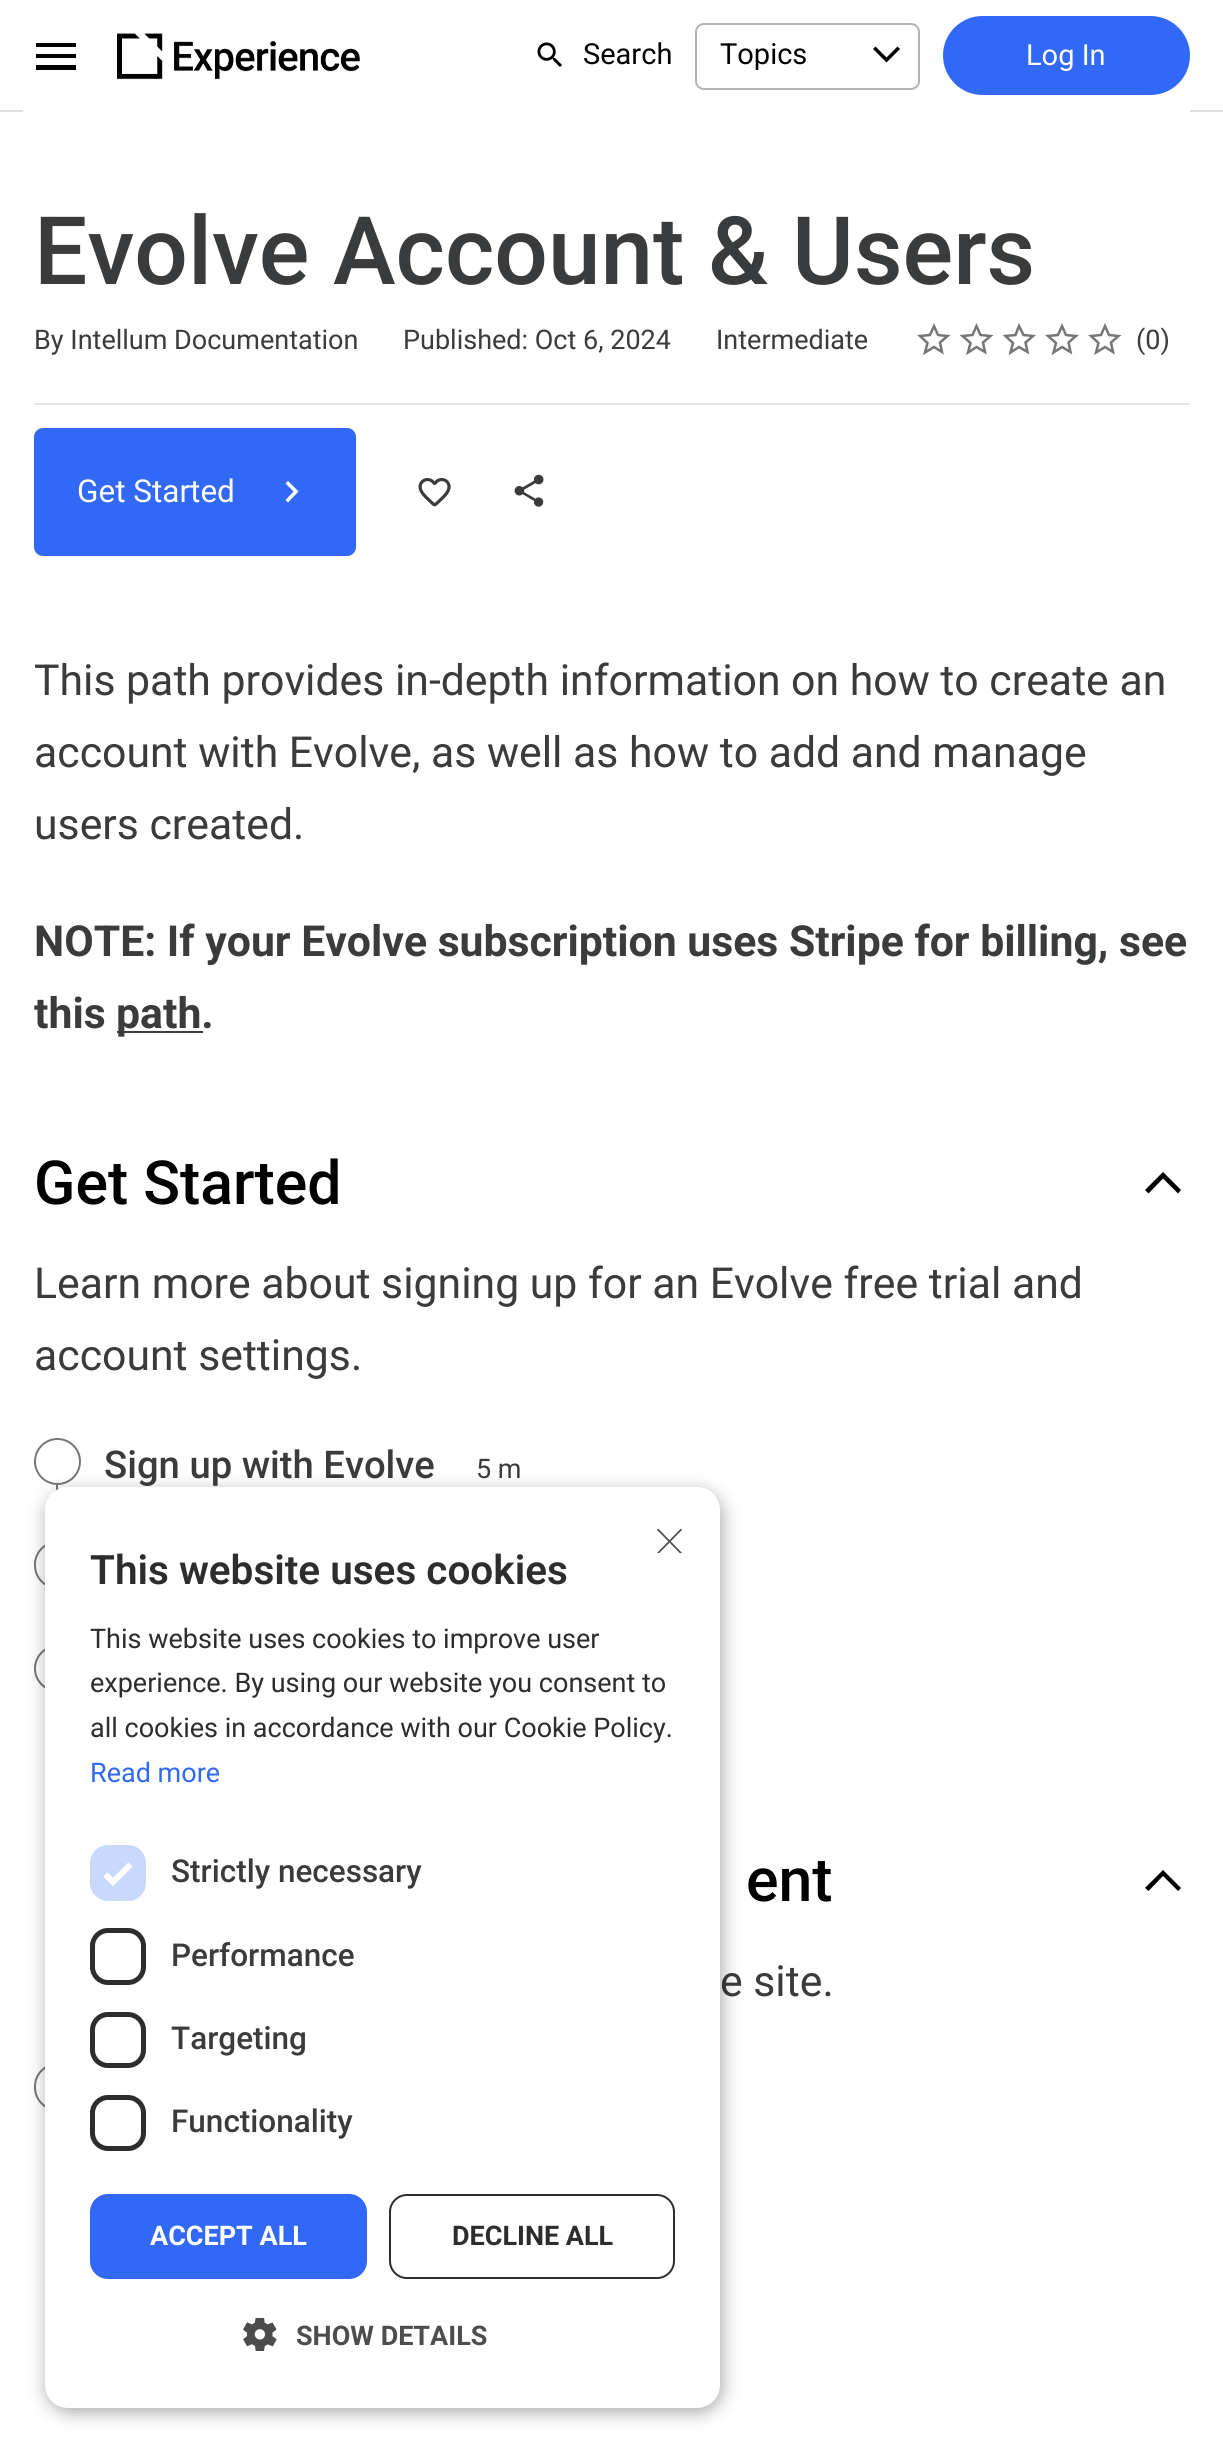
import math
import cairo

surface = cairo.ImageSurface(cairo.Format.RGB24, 1223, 2452)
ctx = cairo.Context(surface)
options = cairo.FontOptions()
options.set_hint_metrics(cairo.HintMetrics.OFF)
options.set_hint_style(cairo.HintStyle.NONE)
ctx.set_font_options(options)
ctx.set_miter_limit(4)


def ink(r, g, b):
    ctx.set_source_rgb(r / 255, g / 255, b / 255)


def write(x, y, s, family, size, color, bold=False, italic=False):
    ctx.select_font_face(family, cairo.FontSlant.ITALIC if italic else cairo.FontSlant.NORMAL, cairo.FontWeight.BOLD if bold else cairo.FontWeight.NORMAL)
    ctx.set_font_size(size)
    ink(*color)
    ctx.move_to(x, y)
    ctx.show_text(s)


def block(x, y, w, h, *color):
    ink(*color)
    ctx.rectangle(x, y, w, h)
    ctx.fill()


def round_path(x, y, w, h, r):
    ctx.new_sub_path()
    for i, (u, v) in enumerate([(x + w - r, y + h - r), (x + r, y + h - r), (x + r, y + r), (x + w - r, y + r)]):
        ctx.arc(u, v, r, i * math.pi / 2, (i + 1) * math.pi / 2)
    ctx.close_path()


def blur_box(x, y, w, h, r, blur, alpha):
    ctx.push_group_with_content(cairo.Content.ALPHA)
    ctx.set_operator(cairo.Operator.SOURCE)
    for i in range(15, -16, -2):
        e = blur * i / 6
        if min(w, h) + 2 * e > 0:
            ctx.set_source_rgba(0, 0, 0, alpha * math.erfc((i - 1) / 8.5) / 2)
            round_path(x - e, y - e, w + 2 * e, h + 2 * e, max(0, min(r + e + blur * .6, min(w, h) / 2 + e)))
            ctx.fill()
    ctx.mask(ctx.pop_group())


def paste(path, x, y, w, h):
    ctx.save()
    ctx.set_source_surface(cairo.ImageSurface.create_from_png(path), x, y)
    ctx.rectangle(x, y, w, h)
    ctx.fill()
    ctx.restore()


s1 = dict(family="Roboto", size=29, color=(0, 0, 0))
s2 = dict(family="Roboto", size=29, color=(255, 255, 255))
s3 = dict(family="Roboto Medium", size=94.5, color=(57, 59, 61))
s4 = dict(family="Roboto", size=27, color=(57, 59, 61))
s5 = dict(family="Roboto", size=31.5, color=(255, 255, 255))
s6 = dict(family="Roboto", size=42.75, color=(57, 59, 61))
s7 = dict(family="Roboto", size=42.75, color=(57, 59, 61), bold=True)
s8 = dict(family="Roboto Medium", size=60.75, color=(0, 0, 0))
s9 = dict(family="Roboto Medium", size=38.25, color=(57, 59, 61))
s10 = dict(family="Roboto Thin", size=65, color=(77, 77, 77))
s11 = dict(family="Roboto SemiBold", size=40.5, color=(45, 45, 45))
s12 = dict(family="Roboto", size=27, color=(45, 45, 45))
s13 = dict(family="Roboto", size=27, color=(49, 104, 246))
s14 = dict(family="Roboto Medium", size=31.5, color=(57, 59, 61))
s15 = dict(family="Roboto", size=27, color=(255, 255, 255), bold=True)
s16 = dict(family="Roboto", size=27, color=(45, 45, 45), bold=True)
s17 = dict(family="Roboto", size=27, color=(77, 77, 77), bold=True)

ink(255, 255, 255)
ctx.paint()
block(0, 110, 1223, 2, 223, 223, 223)
block(23, 110, 1167, 2, 255, 255, 255)
ink(0, 0, 0)
ctx.new_path()
ctx.move_to(36, 70)
ctx.line_to(76, 70)
ctx.line_to(76, 65)
ctx.line_to(36, 65)
ctx.close_path()
ctx.move_to(36, 58)
ctx.line_to(76, 58)
ctx.line_to(76, 54)
ctx.line_to(36, 54)
ctx.close_path()
ctx.move_to(36, 43)
ctx.line_to(36, 47)
ctx.line_to(76, 47)
ctx.line_to(76, 43)
ctx.close_path()
ctx.fill()
paste("pic1.png", 117, 33, 243, 47)
paste("pic2.png", 537, 42, 25, 25)
write(583, 64, "Search", **s1)
round_path(696, 24, 223, 65, 8)
ink(179, 179, 179)
ctx.stroke()
write(720, 64, "Topics", **s1)
ctx.new_path()
ctx.move_to(875.5, 46.5)
ctx.line_to(886.5, 57.5)
ctx.line_to(897.5, 46.5)
ctx.line_to(900, 49)
ctx.line_to(886.5, 62.5)
ctx.line_to(873, 49)
ctx.close_path()
ctx.fill()
ink(49, 104, 246)
round_path(944, 17, 245, 77, 38.5)
ctx.fill_preserve()
ctx.stroke()
write(1026, 65, "Log In", **s2)
write(34, 284, "Evolve Account & Users", **s3)
write(34, 349, "By Intellum Documentation", **s4)
write(403, 349, "Published: Oct 6, 2024", **s4)
write(716, 349, "Intermediate", **s4)
ctx.new_path()
ctx.move_to(925, 352.5)
ctx.line_to(927.5, 343)
ctx.line_to(920, 336)
ctx.line_to(930, 335)
ctx.line_to(934, 326)
ctx.line_to(938, 335)
ctx.line_to(947.5, 336)
ctx.line_to(940, 342.5)
ctx.line_to(942, 352)
ctx.line_to(934, 347)
ctx.close_path()
ink(118, 118, 118)
ctx.set_line_width(2.5)
ctx.stroke()
ctx.new_path()
ctx.move_to(968, 352.5)
ctx.line_to(970.5, 343)
ctx.line_to(962.5, 336)
ctx.line_to(972.5, 335)
ctx.line_to(976.5, 326)
ctx.line_to(980.5, 335)
ctx.line_to(990.5, 336)
ctx.line_to(983, 342.5)
ctx.line_to(985, 352)
ctx.line_to(976.5, 347)
ctx.close_path()
ctx.stroke()
ctx.new_path()
ctx.move_to(1010.5, 352.5)
ctx.line_to(1013, 343)
ctx.line_to(1005.5, 336)
ctx.line_to(1015.5, 335)
ctx.line_to(1019, 326)
ctx.line_to(1023.5, 335)
ctx.line_to(1033, 336)
ctx.line_to(1025.5, 342.5)
ctx.line_to(1027.5, 352)
ctx.line_to(1019, 347)
ctx.close_path()
ctx.stroke()
ctx.new_path()
ctx.move_to(1053.5, 352.5)
ctx.line_to(1056, 343)
ctx.line_to(1048, 336)
ctx.line_to(1058, 335)
ctx.line_to(1062, 326)
ctx.line_to(1066, 335)
ctx.line_to(1076, 336)
ctx.line_to(1068.5, 342.5)
ctx.line_to(1070.5, 352)
ctx.line_to(1062, 347)
ctx.close_path()
ctx.stroke()
ctx.new_path()
ctx.move_to(1096, 352.5)
ctx.line_to(1098.5, 343)
ctx.line_to(1091, 336)
ctx.line_to(1101, 335)
ctx.line_to(1105, 326)
ctx.line_to(1109, 335)
ctx.line_to(1118.5, 336)
ctx.line_to(1111, 342.5)
ctx.line_to(1113, 352)
ctx.line_to(1105, 347)
ctx.close_path()
ctx.stroke()
write(1136, 349, "(0)", **s4)
block(34, 403, 1156, 2, 228, 228, 228)
ink(49, 104, 246)
round_path(35, 429, 320, 126, 8)
ctx.fill_preserve()
ctx.set_line_width(2)
ctx.stroke()
write(77, 502, "Get Started", **s5)
ctx.new_path()
ctx.move_to(285.5, 500)
ctx.line_to(293.5, 491.5)
ctx.line_to(285.5, 483.5)
ctx.line_to(288, 481)
ctx.line_to(298.5, 491.5)
ctx.line_to(288, 502.5)
ctx.close_path()
ctx.fill()
paste("pic3.png", 418, 478, 33, 29)
paste("pic4.png", 514, 474, 30, 33)
write(34, 695, "This path provides in-depth information on how to create an", **s6)
write(34, 767, "account with Evolve, as well as how to add and manage", **s6)
write(34, 839, "users created.", **s6)
write(34, 956, "NOTE: If your Evolve subscription uses Stripe for billing, see", **s7)
write(34, 1028, "this", **s7)
block(117, 1031, 86, 2, 57, 59, 61)
write(116, 1028, "path.", **s7)
write(34, 1204, "Get Started", **s8)
ctx.new_path()
ctx.move_to(1178, 1193.5)
ctx.line_to(1163, 1178.5)
ctx.line_to(1148.5, 1193.5)
ctx.line_to(1145, 1190)
ctx.line_to(1163, 1172)
ctx.line_to(1181, 1190)
ctx.close_path()
ctx.fill()
write(34, 1298, "Learn more about signing up for an Evolve free trial and", **s6)
write(34, 1370, "account settings.", **s6)
block(56, 1438, 2, 53, 118, 118, 118)
ink(255, 255, 255)
ctx.new_path()
ctx.arc(57.5, 1461.5, 22.5, 0, 2 * math.pi)
ctx.fill_preserve()
ink(118, 118, 118)
ctx.stroke()
write(104, 1478, "Sign up with Evolve", **s9)
write(476, 1478, "5 m", **s4)
round_path(35, 1542, 45, 46, 22.5)
ink(118, 118, 118)
ctx.stroke()
ctx.arc(57.5, 1668.5, 22.5, 0, 2 * math.pi)
ctx.stroke()
write(746, 1901, "ent", **s8)
ctx.new_path()
ctx.move_to(1178, 1891)
ctx.line_to(1163, 1876)
ctx.line_to(1148.5, 1891)
ctx.line_to(1145, 1888)
ctx.line_to(1163, 1870)
ctx.line_to(1181, 1888)
ctx.close_path()
ctx.fill()
write(720, 1996, "e site.", **s6)
round_path(35, 2064, 45, 46, 22.5)
ink(118, 118, 118)
ctx.stroke()
ink(0, 0, 0)
blur_box(47, 1492, 675, 920, 23, 9, 0.35)
ink(255, 255, 255)
round_path(45, 1487, 675, 921, 23)
ctx.fill()
ctx.save()
ctx.rectangle(653, 1519, 33, 34)
ctx.clip()
write(653, 1555, "×", **s10)
ctx.restore()
write(90, 1584, "This website uses cookies", **s11)
write(90, 1648, "This website uses cookies to improve user", **s12)
write(90, 1692, "experience. By using our website you consent to", **s12)
write(90, 1737, "all cookies in accordance with our Cookie Policy.", **s12)
write(90, 1782, "Read more", **s13)
ink(201, 216, 253)
round_path(90, 1845, 56, 56, 18)
ctx.fill()
ctx.new_path()
ctx.move_to(105.5, 1874.5)
ctx.line_to(113, 1882)
ctx.line_to(130.5, 1864.5)
ink(255, 255, 255)
ctx.set_line_width(5.9)
ctx.stroke()
write(171, 1882, "Strictly necessary", **s14)
round_path(92.5, 1930.5, 51, 52, 15.5)
ink(45, 45, 45)
ctx.set_line_width(5)
ctx.stroke()
write(171, 1966, "Performance", **s14)
round_path(92.5, 2014.5, 51, 51, 15.5)
ink(45, 45, 45)
ctx.stroke()
write(171, 2049, "Targeting", **s14)
round_path(92.5, 2097.5, 51, 51, 15.5)
ink(45, 45, 45)
ctx.stroke()
write(171, 2132, "Functionality", **s14)
ink(49, 104, 246)
round_path(90, 2194, 277, 85, 18)
ctx.fill()
write(150, 2245, "ACCEPT ALL", **s15)
round_path(390, 2195, 284, 83, 17)
ink(45, 45, 45)
ctx.set_line_width(2)
ctx.stroke()
write(452, 2245, "DECLINE ALL", **s16)
paste("pic5.png", 243, 2318, 34, 33)
write(296, 2345, "SHOW DETAILS", **s17)
surface.write_to_png("screenshot.png")
